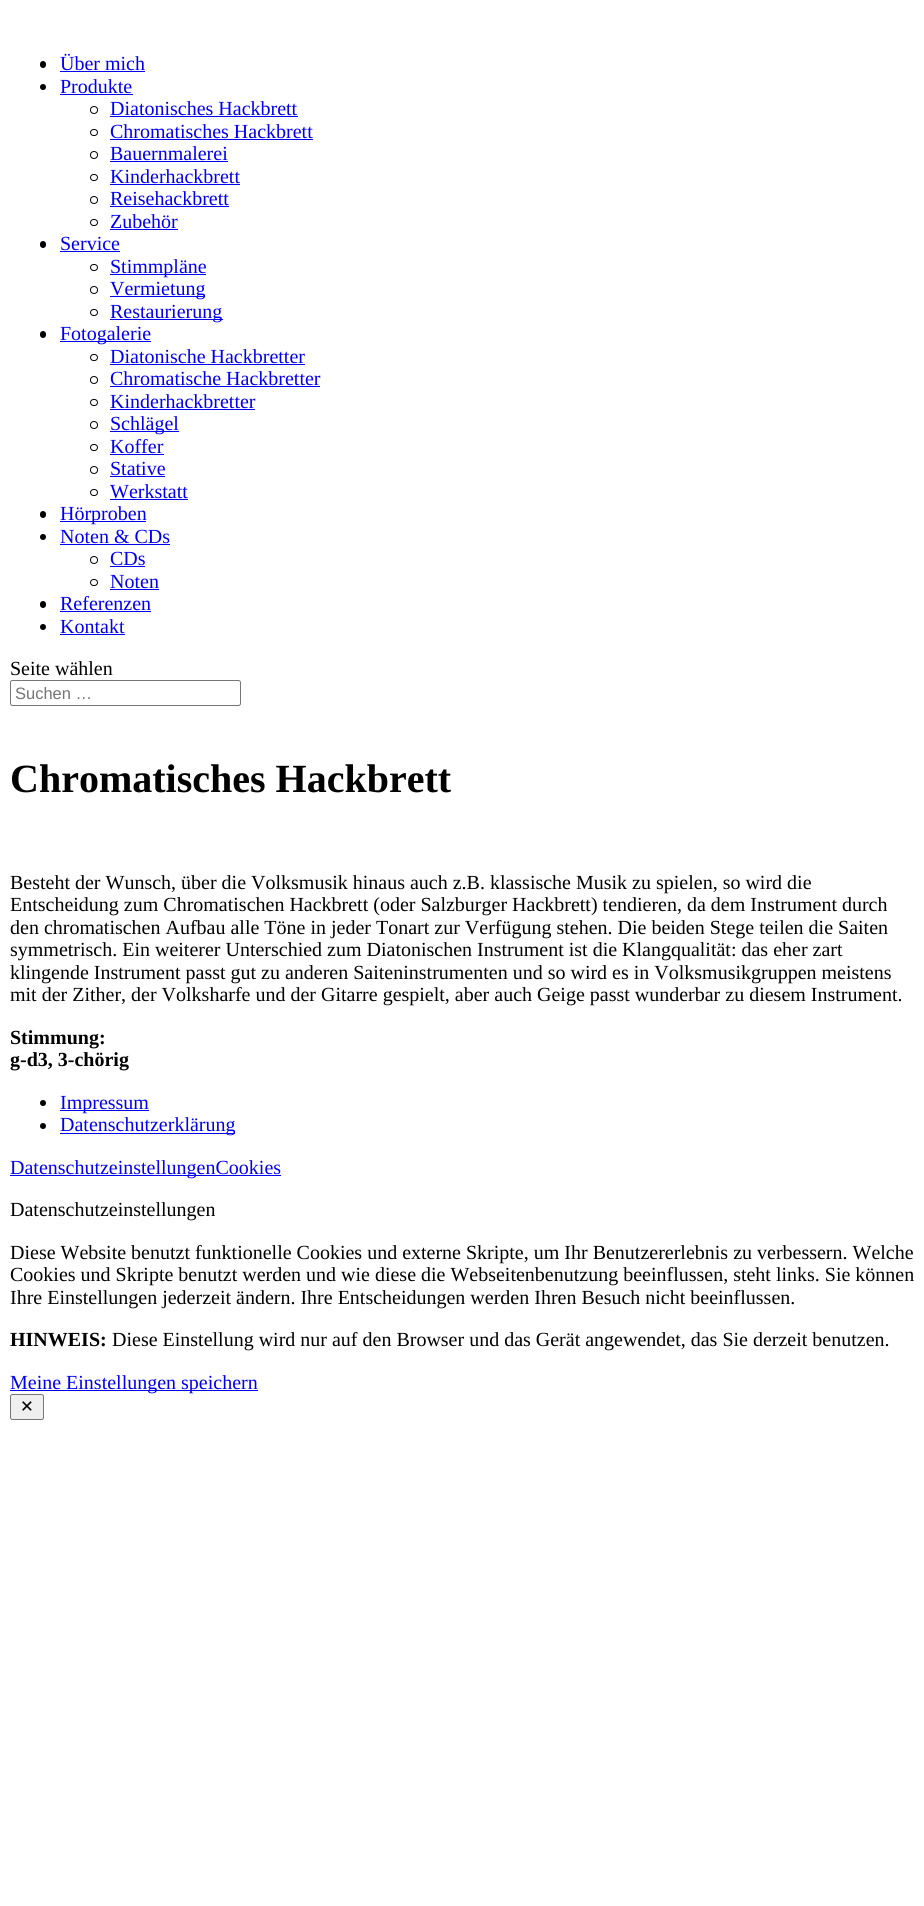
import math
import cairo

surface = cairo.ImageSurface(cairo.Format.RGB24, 924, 1906)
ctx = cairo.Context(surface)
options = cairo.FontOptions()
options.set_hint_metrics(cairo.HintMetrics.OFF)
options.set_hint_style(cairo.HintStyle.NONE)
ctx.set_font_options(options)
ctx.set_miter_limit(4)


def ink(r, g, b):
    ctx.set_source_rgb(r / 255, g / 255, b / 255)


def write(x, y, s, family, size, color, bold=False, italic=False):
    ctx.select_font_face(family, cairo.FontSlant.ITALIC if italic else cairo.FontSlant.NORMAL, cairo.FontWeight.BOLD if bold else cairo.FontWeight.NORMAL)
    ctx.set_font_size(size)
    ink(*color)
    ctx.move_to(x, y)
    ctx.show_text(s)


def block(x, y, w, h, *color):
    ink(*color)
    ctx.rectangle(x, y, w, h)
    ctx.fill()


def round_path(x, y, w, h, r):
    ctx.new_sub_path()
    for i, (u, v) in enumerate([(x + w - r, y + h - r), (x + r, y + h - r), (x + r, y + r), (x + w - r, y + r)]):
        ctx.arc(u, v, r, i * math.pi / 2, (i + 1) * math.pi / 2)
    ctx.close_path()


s1 = dict(family="Liberation Serif", size=20, color=(0, 0, 238))
s2 = dict(family="Liberation Serif", size=20, color=(0, 0, 0))
s3 = dict(family="Liberation Sans", size=16.5, color=(117, 117, 117))
s4 = dict(family="Liberation Serif", size=40, color=(0, 0, 0), bold=True)
s5 = dict(family="Liberation Serif", size=20, color=(0, 0, 0), bold=True)
s6 = dict(family="DejaVu Sans", size=16.5, color=(0, 0, 0))

ink(255, 255, 255)
ctx.paint()
ink(0, 0, 0)
round_path(40, 61, 6, 7, 3)
ctx.fill()
write(60, 70, "Über mich", **s1)
block(60, 71, 85, 1, 0, 0, 238)
ink(0, 0, 0)
ctx.new_path()
ctx.arc(43, 87, 3, 0, 2 * math.pi)
ctx.fill()
write(60, 93, "Produkte", **s1)
block(60, 94, 73, 1, 0, 0, 238)
ctx.new_path()
ctx.arc(94, 110, 3.5, 0, 2 * math.pi)
ink(0, 0, 0)
ctx.set_line_width(1)
ctx.stroke()
write(110, 115, "Diatonisches Hackbrett", **s1)
block(110, 116, 188, 1, 0, 0, 238)
round_path(90.5, 129.5, 7, 6, 3)
ink(0, 0, 0)
ctx.stroke()
write(110, 138, "Chromatisches Hackbrett", **s1)
block(110, 139, 203, 1, 0, 0, 238)
ctx.new_path()
ctx.arc(94, 155, 3.5, 0, 2 * math.pi)
ink(0, 0, 0)
ctx.stroke()
write(110, 160, "Bauernmalerei", **s1)
block(110, 161, 118, 1, 0, 0, 238)
round_path(90.5, 174.5, 7, 6, 3)
ink(0, 0, 0)
ctx.stroke()
write(110, 183, "Kinderhackbrett", **s1)
block(110, 184, 130, 1, 0, 0, 238)
ctx.new_path()
ctx.arc(94, 200, 3.5, 0, 2 * math.pi)
ink(0, 0, 0)
ctx.stroke()
write(110, 205, "Reisehackbrett", **s1)
block(110, 206, 119, 1, 0, 0, 238)
round_path(90.5, 219.5, 7, 6, 3)
ink(0, 0, 0)
ctx.stroke()
write(110, 228, "Zubehör", **s1)
block(110, 229, 68, 1, 0, 0, 238)
ink(0, 0, 0)
round_path(40, 241, 6, 7, 3)
ctx.fill()
write(60, 250, "Service", **s1)
block(60, 251, 60, 1, 0, 0, 238)
round_path(90.5, 264.5, 7, 6, 3)
ink(0, 0, 0)
ctx.stroke()
block(110, 274, 96, 1, 0, 0, 238)
write(110, 273, "Stimmpläne", **s1)
ctx.new_path()
ctx.arc(94, 290, 3.5, 0, 2 * math.pi)
ink(0, 0, 0)
ctx.stroke()
block(110, 296, 95, 1, 0, 0, 238)
write(110, 295, "Vermietung", **s1)
round_path(90.5, 309.5, 7, 6, 3)
ink(0, 0, 0)
ctx.stroke()
block(110, 319, 113, 1, 0, 0, 238)
write(110, 318, "Restaurierung", **s1)
ink(0, 0, 0)
round_path(40, 331, 6, 7, 3)
ctx.fill()
block(60, 341, 91, 1, 0, 0, 238)
write(60, 340, "Fotogalerie", **s1)
round_path(90.5, 354.5, 7, 6, 3)
ink(0, 0, 0)
ctx.stroke()
write(110, 363, "Diatonische Hackbretter", **s1)
block(110, 364, 195, 1, 0, 0, 238)
ctx.new_path()
ctx.arc(94, 380, 3.5, 0, 2 * math.pi)
ink(0, 0, 0)
ctx.stroke()
write(110, 385, "Chromatische Hackbretter", **s1)
block(110, 386, 210, 1, 0, 0, 238)
round_path(90.5, 399.5, 7, 6, 3)
ink(0, 0, 0)
ctx.stroke()
write(110, 408, "Kinderhackbretter", **s1)
block(110, 409, 145, 1, 0, 0, 238)
ctx.new_path()
ctx.arc(94, 425, 3.5, 0, 2 * math.pi)
ink(0, 0, 0)
ctx.stroke()
block(110, 431, 69, 1, 0, 0, 238)
write(110, 430, "Schlägel", **s1)
round_path(90.5, 444.5, 7, 6, 3)
ink(0, 0, 0)
ctx.stroke()
write(110, 453, "Koffer", **s1)
block(110, 454, 54, 1, 0, 0, 238)
ctx.new_path()
ctx.arc(94, 470, 3.5, 0, 2 * math.pi)
ink(0, 0, 0)
ctx.stroke()
write(110, 475, "Stative", **s1)
block(110, 476, 55, 1, 0, 0, 238)
round_path(90.5, 489.5, 7, 6, 3)
ink(0, 0, 0)
ctx.stroke()
write(110, 498, "Werkstatt", **s1)
block(110, 499, 78, 1, 0, 0, 238)
ink(0, 0, 0)
round_path(40, 511, 6, 7, 3)
ctx.fill()
block(60, 521, 86, 1, 0, 0, 238)
write(60, 520, "Hörproben", **s1)
ink(0, 0, 0)
ctx.new_path()
ctx.arc(43, 537, 3, 0, 2 * math.pi)
ctx.fill()
write(60, 543, "Noten & CDs", **s1)
block(60, 544, 110, 1, 0, 0, 238)
ctx.new_path()
ctx.arc(94, 560, 3.5, 0, 2 * math.pi)
ink(0, 0, 0)
ctx.stroke()
write(110, 565, "CDs", **s1)
block(110, 566, 35, 1, 0, 0, 238)
round_path(90.5, 579.5, 7, 6, 3)
ink(0, 0, 0)
ctx.stroke()
write(110, 588, "Noten", **s1)
block(110, 589, 49, 1, 0, 0, 238)
ink(0, 0, 0)
round_path(40, 601, 6, 7, 3)
ctx.fill()
write(60, 610, "Referenzen", **s1)
block(60, 611, 91, 1, 0, 0, 238)
ink(0, 0, 0)
ctx.new_path()
ctx.arc(43, 627, 3, 0, 2 * math.pi)
ctx.fill()
write(60, 633, "Kontakt", **s1)
block(60, 634, 65, 1, 0, 0, 238)
write(10, 675, "Seite wählen", **s2)
round_path(10.5, 680.5, 230, 25, 2)
ink(118, 118, 118)
ctx.stroke()
write(15, 699, "Suchen …", **s3)
write(10, 792, "Chromatisches Hackbrett", **s4)
write(10, 889, "Besteht der Wunsch, über die Volksmusik hinaus auch z.B. klassische Musik zu spielen, so wird die", **s2)
write(10, 911, "Entscheidung zum Chromatischen Hackbrett (oder Salzburger Hackbrett) tendieren, da dem Instrument durch", **s2)
write(10, 934, "den chromatischen Aufbau alle Töne in jeder Tonart zur Verfügung stehen. Die beiden Stege teilen die Saiten", **s2)
write(10, 956, "symmetrisch. Ein weiterer Unterschied zum Diatonischen Instrument ist die Klangqualität: das eher zart", **s2)
write(10, 979, "klingende Instrument passt gut zu anderen Saiteninstrumenten und so wird es in Volksmusikgruppen meistens", **s2)
write(10, 1001, "mit der Zither, der Volksharfe und der Gitarre gespielt, aber auch Geige passt wunderbar zu diesem Instrument.", **s2)
write(10, 1044, "Stimmung:", **s5)
write(10, 1066, "g-d3, 3-chörig", **s5)
ctx.new_path()
ctx.arc(43, 1103, 3, 0, 2 * math.pi)
ctx.fill()
block(60, 1110, 89, 1, 0, 0, 238)
write(60, 1109, "Impressum", **s1)
ink(0, 0, 0)
ctx.new_path()
ctx.arc(43, 1126, 3, 0, 2 * math.pi)
ctx.fill()
block(60, 1133, 175, 1, 0, 0, 238)
write(60, 1131, "Datenschutzerklärung", **s1)
block(10, 1175, 205, 1, 0, 0, 238)
write(10, 1174, "DatenschutzeinstellungenCookies", **s1)
block(215, 1175, 66, 1, 0, 0, 238)
write(10, 1216, "Datenschutzeinstellungen", **s2)
write(10, 1259, "Diese Website benutzt funktionelle Cookies und externe Skripte, um Ihr Benutzererlebnis zu verbessern. Welche", **s2)
write(10, 1281, "Cookies und Skripte benutzt werden und wie diese die Webseitenbenutzung beeinflussen, steht links. Sie können", **s2)
write(10, 1304, "Ihre Einstellungen jederzeit ändern. Ihre Entscheidungen werden Ihren Besuch nicht beeinflussen.", **s2)
write(10, 1346, "HINWEIS:", **s5)
write(112, 1346, "Diese Einstellung wird nur auf den Browser und das Gerät angewendet, das Sie derzeit benutzen.", **s2)
block(10, 1390, 248, 1, 0, 0, 238)
write(10, 1389, "Meine Einstellungen speichern", **s1)
ink(239, 239, 239)
round_path(10.5, 1394.5, 33, 25, 2)
ctx.fill_preserve()
ink(118, 118, 118)
ctx.stroke()
write(20, 1412, "✕", **s6)
surface.write_to_png("screenshot.png")
